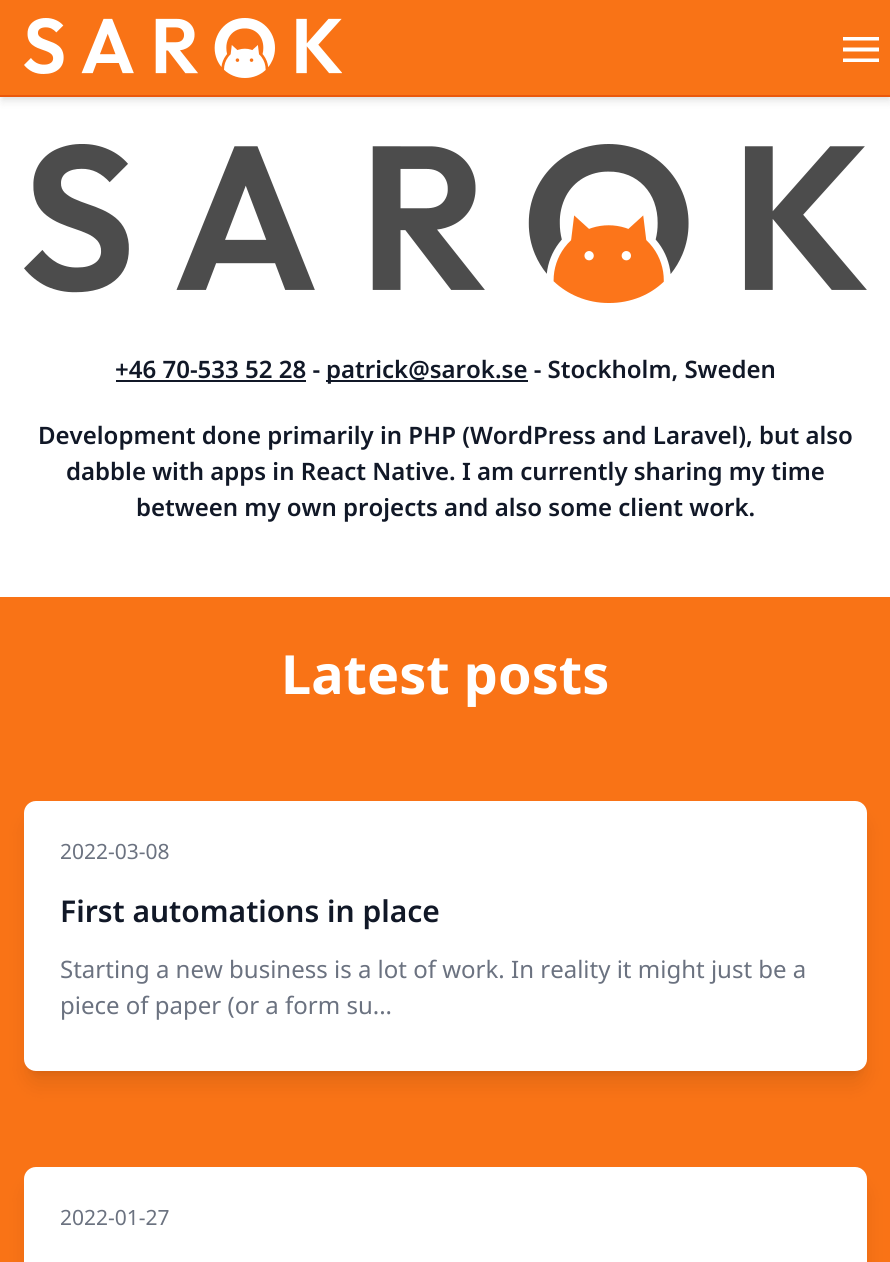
import math
import cairo

surface = cairo.ImageSurface(cairo.Format.RGB24, 890, 1262)
ctx = cairo.Context(surface)
options = cairo.FontOptions()
options.set_hint_metrics(cairo.HintMetrics.OFF)
options.set_hint_style(cairo.HintStyle.NONE)
ctx.set_font_options(options)
ctx.set_miter_limit(4)


def ink(r, g, b):
    ctx.set_source_rgb(r / 255, g / 255, b / 255)


def write(x, y, s, family, size, color, bold=False, italic=False):
    ctx.select_font_face(family, cairo.FontSlant.ITALIC if italic else cairo.FontSlant.NORMAL, cairo.FontWeight.BOLD if bold else cairo.FontWeight.NORMAL)
    ctx.set_font_size(size)
    ink(*color)
    ctx.move_to(x, y)
    ctx.show_text(s)


def block(x, y, w, h, *color):
    ink(*color)
    ctx.rectangle(x, y, w, h)
    ctx.fill()


def round_path(x, y, w, h, r):
    ctx.new_sub_path()
    for i, (u, v) in enumerate([(x + w - r, y + h - r), (x + r, y + h - r), (x + r, y + r), (x + w - r, y + r)]):
        ctx.arc(u, v, r, i * math.pi / 2, (i + 1) * math.pi / 2)
    ctx.close_path()


def blur_box(x, y, w, h, r, blur, alpha):
    ctx.push_group_with_content(cairo.Content.ALPHA)
    ctx.set_operator(cairo.Operator.SOURCE)
    for i in range(15, -16, -2):
        e = blur * i / 6
        if min(w, h) + 2 * e > 0:
            ctx.set_source_rgba(0, 0, 0, alpha * math.erfc((i - 1) / 8.5) / 2)
            round_path(x - e, y - e, w + 2 * e, h + 2 * e, max(0, min(r + e + blur * .6, min(w, h) / 2 + e)))
            ctx.fill()
    ctx.mask(ctx.pop_group())


def paste(path, x, y, w, h):
    ctx.save()
    ctx.set_source_surface(cairo.ImageSurface.create_from_png(path), x, y)
    ctx.rectangle(x, y, w, h)
    ctx.fill()
    ctx.restore()


s1 = dict(family="Noto Sans SemiBold", size=24, color=(17, 24, 39))
s2 = dict(family="Noto Sans", size=54, color=(255, 255, 255), bold=True)
s3 = dict(family="Noto Sans", size=21, color=(107, 114, 128))
s4 = dict(family="Noto Sans SemiBold", size=30, color=(17, 24, 39))
s5 = dict(family="Noto Sans", size=24, color=(107, 114, 128))

ink(255, 255, 255)
ctx.paint()
ink(0, 0, 0)
blur_box(3, 6, 885, 90, 0, 3, 0.1)
blur_box(2, 8, 888, 93, 0, 4.5, 0.1)
block(0, 0, 890, 95, 249, 115, 22)
block(0, 95, 890, 2, 234, 88, 12)
paste("pic1.png", 24, 18, 318, 60)
ink(255, 255, 255)
ctx.set_fill_rule(cairo.FillRule.EVEN_ODD)
ctx.new_path()
ctx.move_to(843, 37)
ctx.line_to(879, 37)
ctx.line_to(879, 40.5)
ctx.line_to(843, 40.5)
ctx.close_path()
ctx.move_to(843, 47.5)
ctx.line_to(879, 47.5)
ctx.line_to(879, 51.5)
ctx.line_to(843, 51.5)
ctx.close_path()
ctx.move_to(843, 58.5)
ctx.line_to(879, 58.5)
ctx.line_to(879, 62)
ctx.line_to(843, 62)
ctx.close_path()
ctx.fill()
paste("pic2.png", 24, 144, 843, 159)
write(115, 378, "+46 70-533 52 28 -", **s1)
block(116, 380, 190, 2, 17, 24, 39)
block(326, 380, 202, 2, 17, 24, 39)
write(326, 378, "patrick@sarok.se - Stockholm, Sweden", **s1)
write(38, 444, "Development done primarily in PHP (WordPress and Laravel), but also", **s1)
write(66, 480, "dabble with apps in React Native. I am currently sharing my time", **s1)
write(136, 516, "between my own projects and also some client work.", **s1)
block(0, 597, 890, 665, 249, 115, 22)
write(281, 694, "Latest posts", **s2)
ink(0, 0, 0)
blur_box(30, 813, 831, 258, 6, 4.5, 0.1)
blur_box(29, 821, 834, 261, 8, 11, 0.1)
ink(255, 255, 255)
round_path(24, 801, 843, 270, 12)
ctx.fill()
write(60, 859, "2022-03-08", **s3)
write(60, 922, "First automations in place", **s4)
write(60, 978, "Starting a new business is a lot of work. In reality it might just be a", **s5)
write(60, 1014, "piece of paper (or a form su...", **s5)
ink(0, 0, 0)
blur_box(29, 1187, 834, 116, 8, 11, 0.1)
ink(255, 255, 255)
round_path(24, 1167, 843, 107, 12)
ctx.fill()
write(60, 1225, "2022-01-27", **s3)
surface.write_to_png("screenshot.png")
